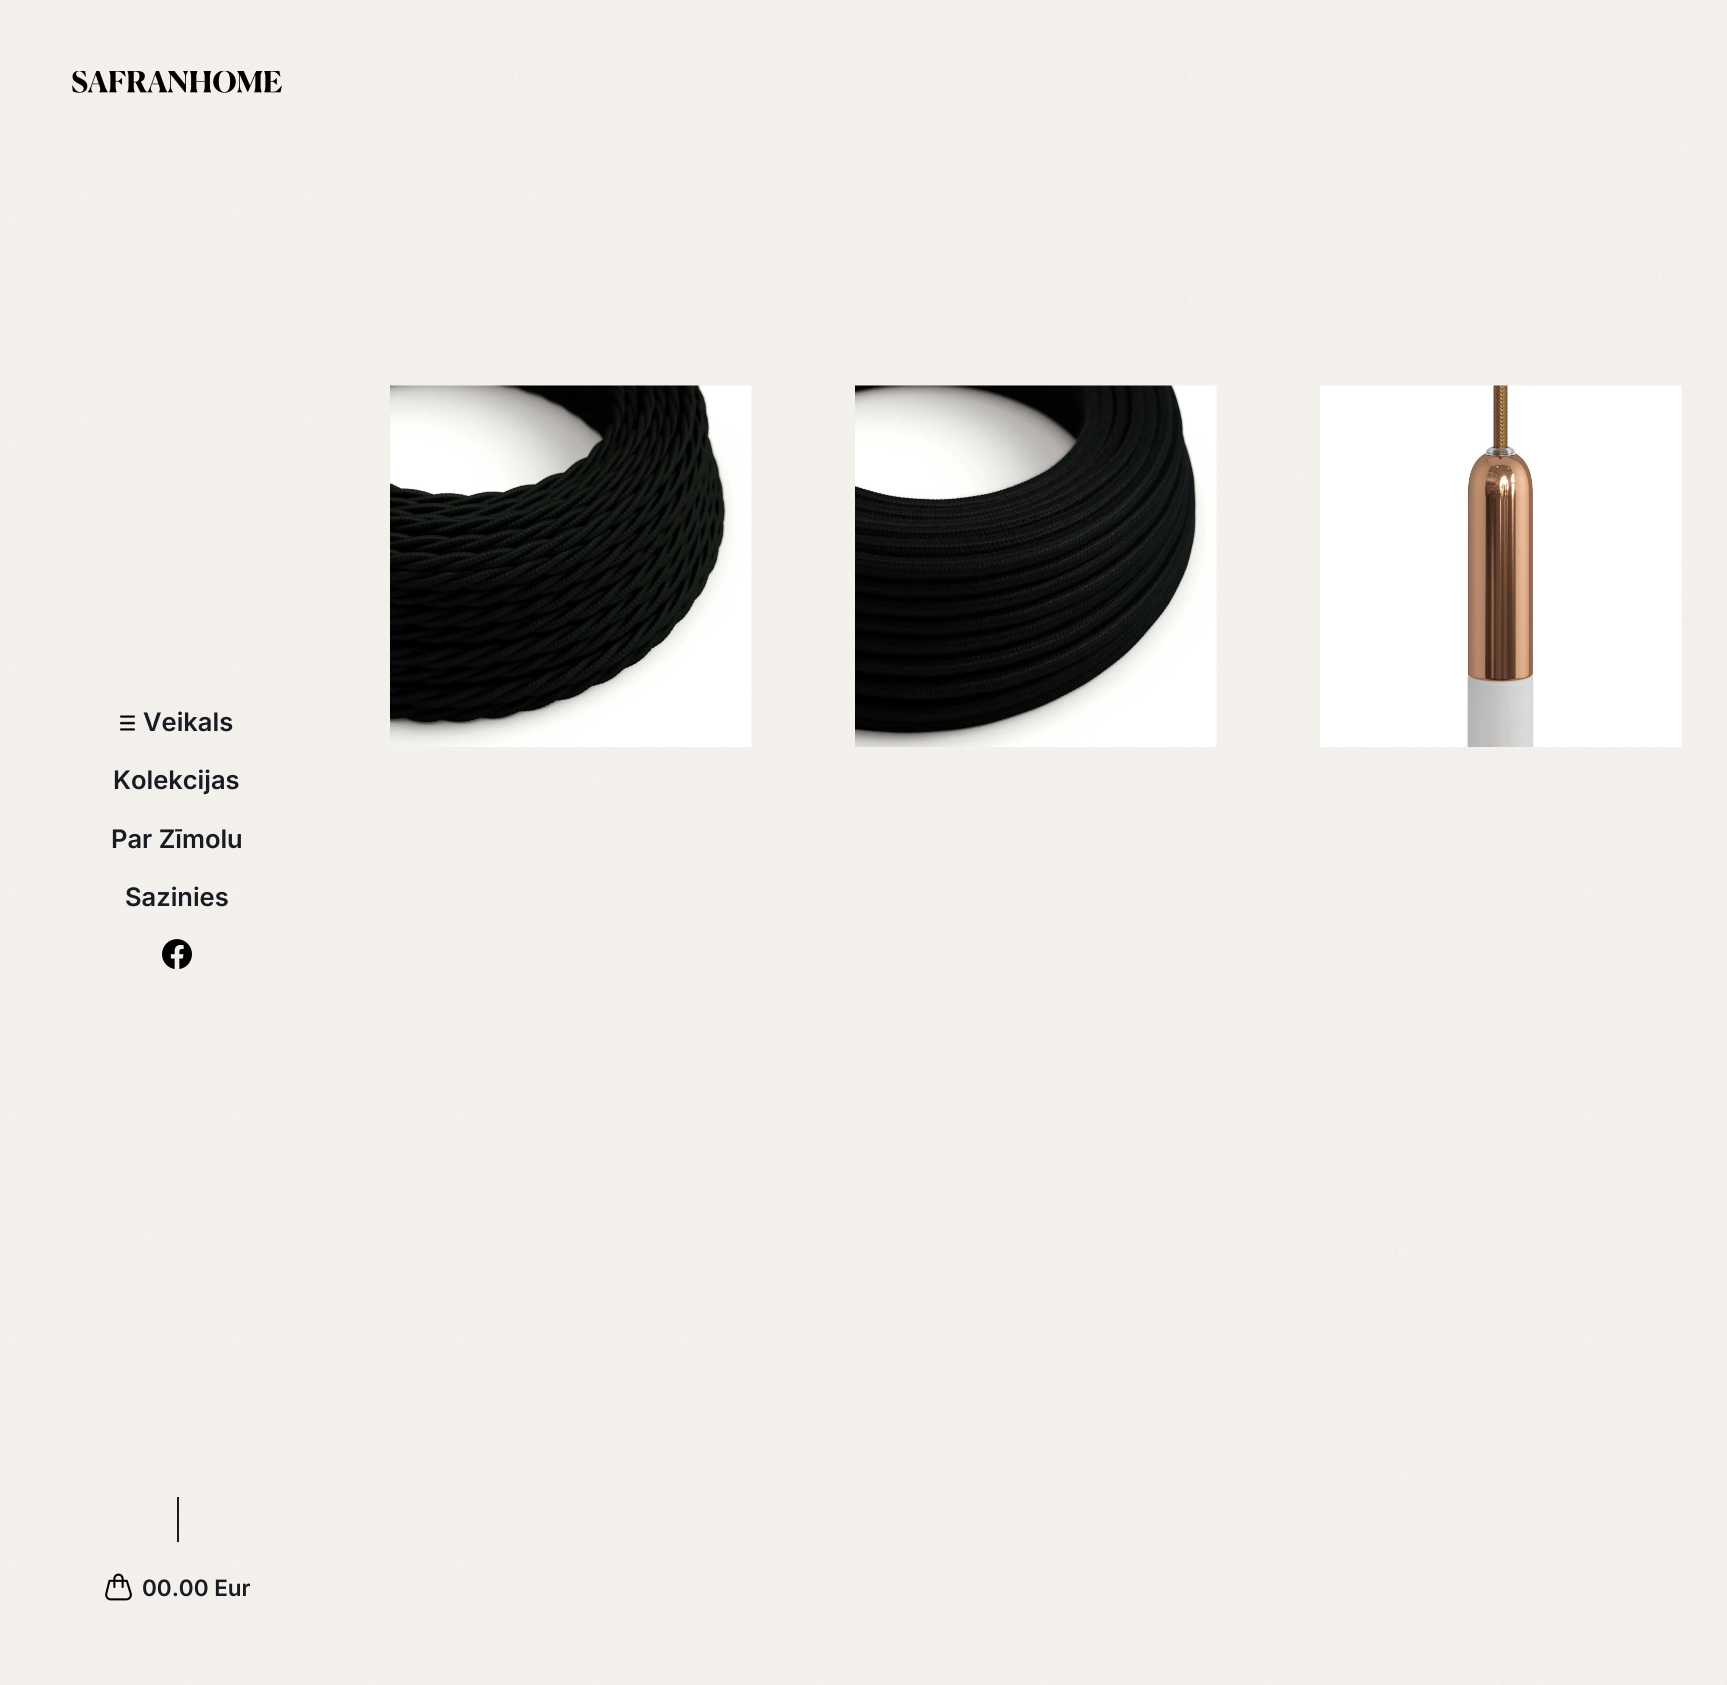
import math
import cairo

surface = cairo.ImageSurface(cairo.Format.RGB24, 1727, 1685)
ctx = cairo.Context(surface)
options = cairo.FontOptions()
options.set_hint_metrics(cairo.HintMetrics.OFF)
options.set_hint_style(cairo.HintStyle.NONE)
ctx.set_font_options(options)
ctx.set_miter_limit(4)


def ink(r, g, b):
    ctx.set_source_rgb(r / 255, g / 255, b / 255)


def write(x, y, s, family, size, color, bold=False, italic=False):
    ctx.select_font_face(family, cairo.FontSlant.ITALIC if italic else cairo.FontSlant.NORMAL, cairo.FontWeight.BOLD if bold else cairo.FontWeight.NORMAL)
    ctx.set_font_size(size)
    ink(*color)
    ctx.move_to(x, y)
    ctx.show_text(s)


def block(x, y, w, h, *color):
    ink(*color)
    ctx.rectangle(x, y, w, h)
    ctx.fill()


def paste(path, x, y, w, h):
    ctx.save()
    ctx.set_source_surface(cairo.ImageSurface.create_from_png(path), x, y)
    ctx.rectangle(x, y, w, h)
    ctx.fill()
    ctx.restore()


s1 = dict(family="Inter SemiBold", size=25.5, color=(24, 27, 33))
s2 = dict(family="Inter SemiBold", size=22.5, color=(24, 27, 33))

ink(255, 255, 255)
ctx.paint()
paste("pic1.png", 0, 0, 1727, 1685)
paste("pic2.png", 390, 385, 362, 362)
paste("pic3.png", 855, 385, 362, 362)
paste("pic4.png", 1320, 385, 362, 362)
paste("pic5.png", 72, 71, 210, 22)
paste("pic6.png", 120, 715, 15, 16)
write(143, 731, "Veikals", **s1)
write(113, 789, "Kolekcijas", **s1)
write(111, 848, "Par Zīmolu", **s1)
write(125, 906, "Sazinies", **s1)
paste("pic7.png", 162, 939, 30, 30)
block(177, 1497, 2, 45, 24, 27, 33)
paste("pic8.png", 105, 1573, 27, 28)
write(142, 1596, "00.00 Eur", **s2)
surface.write_to_png("screenshot.png")
